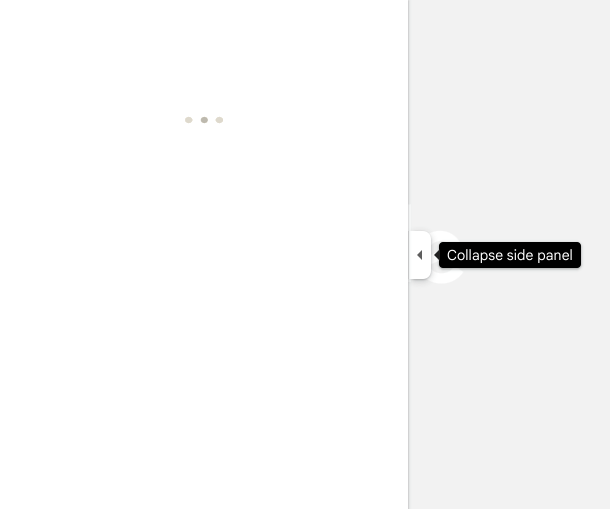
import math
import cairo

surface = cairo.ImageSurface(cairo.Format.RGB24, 610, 509)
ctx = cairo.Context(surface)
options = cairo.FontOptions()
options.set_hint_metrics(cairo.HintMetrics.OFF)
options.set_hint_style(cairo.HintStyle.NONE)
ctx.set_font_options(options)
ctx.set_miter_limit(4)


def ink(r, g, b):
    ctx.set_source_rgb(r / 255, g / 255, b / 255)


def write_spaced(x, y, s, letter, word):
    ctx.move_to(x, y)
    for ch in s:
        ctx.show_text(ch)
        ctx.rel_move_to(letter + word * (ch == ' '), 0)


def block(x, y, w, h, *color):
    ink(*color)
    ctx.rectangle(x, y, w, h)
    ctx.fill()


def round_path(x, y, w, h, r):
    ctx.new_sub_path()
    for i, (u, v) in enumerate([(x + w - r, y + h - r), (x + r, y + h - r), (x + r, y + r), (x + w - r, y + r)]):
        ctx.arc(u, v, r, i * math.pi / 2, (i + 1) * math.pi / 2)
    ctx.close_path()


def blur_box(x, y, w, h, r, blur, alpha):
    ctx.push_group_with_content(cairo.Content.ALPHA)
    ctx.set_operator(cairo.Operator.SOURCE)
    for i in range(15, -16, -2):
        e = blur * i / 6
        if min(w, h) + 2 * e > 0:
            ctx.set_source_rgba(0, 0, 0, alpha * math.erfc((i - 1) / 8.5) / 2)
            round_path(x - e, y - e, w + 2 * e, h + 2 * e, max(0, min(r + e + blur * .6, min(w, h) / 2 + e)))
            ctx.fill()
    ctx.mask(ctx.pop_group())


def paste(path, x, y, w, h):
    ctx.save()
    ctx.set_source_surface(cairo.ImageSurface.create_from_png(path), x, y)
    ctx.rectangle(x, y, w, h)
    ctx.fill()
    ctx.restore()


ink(242, 242, 242)
ctx.paint()
paste("pic1.png", 408, 204, 56, 80)
ink(60, 64, 67)
blur_box(406, 231, 27, 52, 10, 3, 0.15)
blur_box(408, 232, 23, 48, 8, 1, 0.3)
ink(255, 255, 255)
ctx.new_path()
ctx.move_to(408, 231)
ctx.line_to(423, 231)
ctx.curve_to(427.5, 231, 431, 234.5, 431, 239)
ctx.line_to(431, 271)
ctx.curve_to(431, 275.5, 427.5, 279, 423, 279)
ctx.line_to(408, 279)
ctx.close_path()
ctx.fill()
block(408, 231, 1, 48, 227, 227, 227)
ink(60, 64, 67)
blur_box(-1, 0, 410, 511, 0, 1.5, 0.15)
blur_box(0, 1, 408, 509, 0, 1, 0.3)
block(0, 0, 408, 509, 255, 255, 255)
paste("pic2.png", 185, 116, 38, 8)
ink(94, 94, 94)
ctx.new_path()
ctx.move_to(422, 260)
ctx.line_to(417, 255)
ctx.line_to(422, 250)
ctx.close_path()
ctx.fill()
ink(60, 64, 67)
blur_box(438, 242, 144, 28, 5, 1.5, 0.15)
blur_box(439, 243, 142, 26, 4, 1, 0.3)
ink(0, 0, 0)
round_path(439, 242, 142, 26, 4)
ctx.fill()
ink(31, 31, 31)
ctx.new_path()
ctx.move_to(440, 249)
ctx.line_to(440, 261)
ctx.line_to(434, 255)
ctx.close_path()
ctx.fill()
ctx.select_font_face("Google Sans")
ctx.set_font_size(14)
ink(255, 255, 255)
write_spaced(447, 260, "Collapse side panel", 0.1, 0)
surface.write_to_png("screenshot.png")
